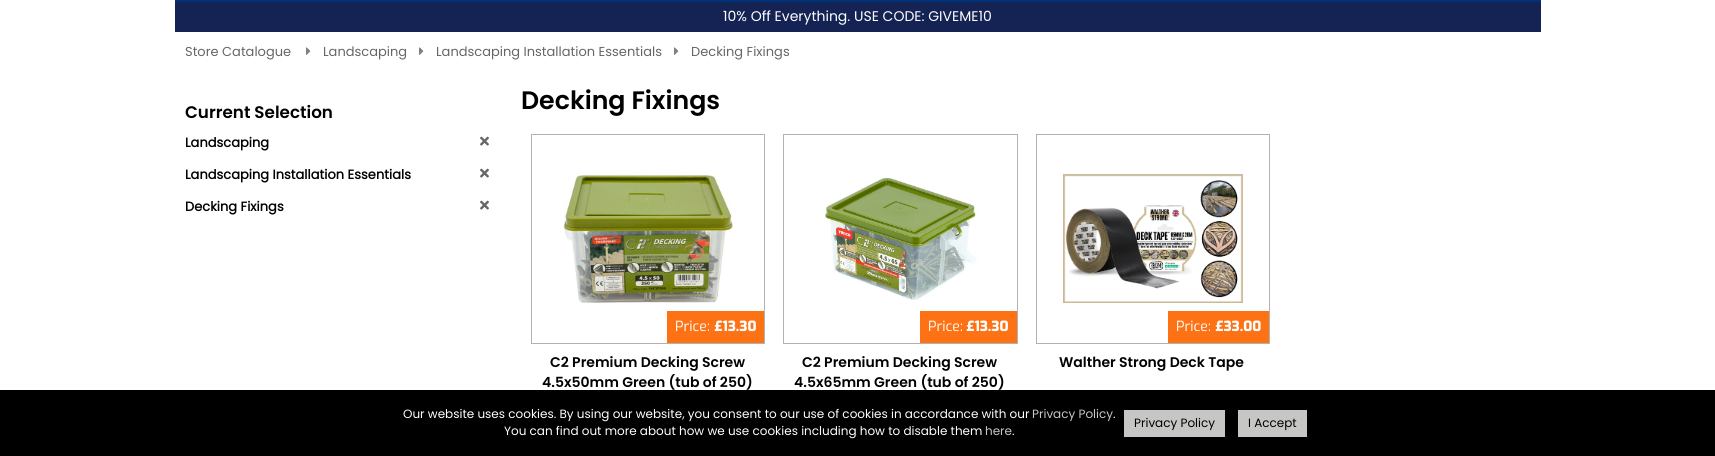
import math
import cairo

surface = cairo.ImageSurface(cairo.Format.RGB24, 1715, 456)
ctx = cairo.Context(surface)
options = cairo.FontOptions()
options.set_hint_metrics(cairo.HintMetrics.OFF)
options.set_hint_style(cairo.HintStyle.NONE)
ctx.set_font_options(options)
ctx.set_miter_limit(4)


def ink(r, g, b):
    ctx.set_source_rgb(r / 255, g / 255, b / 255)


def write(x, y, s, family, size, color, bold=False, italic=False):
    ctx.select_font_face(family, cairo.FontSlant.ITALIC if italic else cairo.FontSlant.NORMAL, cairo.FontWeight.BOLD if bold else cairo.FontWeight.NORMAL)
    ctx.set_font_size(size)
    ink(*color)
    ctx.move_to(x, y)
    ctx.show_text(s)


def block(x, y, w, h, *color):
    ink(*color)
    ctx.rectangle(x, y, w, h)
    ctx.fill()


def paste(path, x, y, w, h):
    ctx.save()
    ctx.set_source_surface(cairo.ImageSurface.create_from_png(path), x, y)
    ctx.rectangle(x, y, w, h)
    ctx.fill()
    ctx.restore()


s1 = dict(family="Poppins", size=14, color=(255, 255, 255))
s2 = dict(family="Poppins", size=13, color=(102, 102, 102))
s3 = dict(family="Poppins SemiBold", size=16.75, color=(0, 0, 0))
s4 = dict(family="Poppins", size=13, color=(0, 0, 0), bold=True)
s5 = dict(family="Poppins SemiBold", size=25.25, color=(0, 0, 0))
s6 = dict(family="Exo", size=14, color=(255, 255, 255))
s7 = dict(family="Exo ExtraBold", size=14, color=(255, 255, 255))
s8 = dict(family="Poppins SemiBold", size=14, color=(0, 0, 0))
s9 = dict(family="Poppins", size=12, color=(255, 255, 255))
s10 = dict(family="Poppins", size=12, color=(198, 198, 197))
s11 = dict(family="Poppins", size=12, color=(0, 0, 0))

ink(255, 255, 255)
ctx.paint()
block(175, 0, 1366, 2, 0, 50, 119)
block(175, 2, 1366, 30, 20, 35, 84)
write(723, 21, "10% Off Everything. USE CODE: GIVEME10", **s1)
write(185, 56, "Store Catalogue", **s2)
paste("pic1.png", 306, 47, 5, 8)
write(323, 56, "Landscaping", **s2)
paste("pic1.png", 419, 47, 5, 8)
write(436, 56, "Landscaping Installation Essentials", **s2)
paste("pic1.png", 674, 47, 5, 8)
write(691, 56, "Decking Fixings", **s2)
write(185, 118, "Current Selection", **s3)
write(185, 147, "Landscaping", **s4)
paste("pic2.png", 480, 136, 9, 10)
write(185, 179, "Landscaping Installation Essentials", **s4)
paste("pic2.png", 480, 168, 9, 10)
write(185, 211, "Decking Fixings", **s4)
paste("pic2.png", 480, 200, 9, 10)
write(521, 109, "Decking Fixings", **s5)
ctx.rectangle(531.5, 134.5, 233, 209)
ink(178, 178, 178)
ctx.set_line_width(1)
ctx.stroke()
paste("pic3.png", 563, 172, 170, 131)
block(667, 311, 97, 32, 253, 114, 21)
write(675, 331, "Price:", **s6)
write(714, 331, "£13.30", **s7)
write(550, 367, "C2 Premium Decking Screw", **s8)
write(542, 387, "4.5x50mm Green (tub of 250)", **s8)
ctx.rectangle(783.5, 134.5, 234, 209)
ink(178, 178, 178)
ctx.stroke()
paste("pic4.png", 825, 177, 154, 123)
block(920, 311, 97, 32, 253, 114, 21)
write(928, 331, "Price:", **s6)
write(966, 331, "£13.30", **s7)
write(802, 367, "C2 Premium Decking Screw", **s8)
write(794, 387, "4.5x65mm Green (tub of 250)", **s8)
ctx.rectangle(1036.5, 134.5, 233, 209)
ink(178, 178, 178)
ctx.stroke()
paste("pic5.png", 1063, 174, 180, 129)
block(1168, 311, 101, 32, 253, 114, 21)
write(1176, 331, "Price:", **s6)
write(1215, 331, "£33.00", **s7)
write(1059, 367, "Walther Strong Deck Tape", **s8)
block(0, 390, 1715, 66, 0, 0, 0)
write(403, 418, "Our website uses cookies. By using our website, you consent to our use of cookies in accordance with our", **s9)
write(1032, 418, "Privacy Policy", **s10)
write(1113, 418, ".", **s9)
write(504, 435, "You can find out more about how we use cookies including how to disable them", **s9)
write(985, 435, "here", **s10)
write(1012, 435, ".", **s9)
block(1124, 410, 101, 27, 198, 198, 197)
write(1134, 427, "Privacy Policy", **s11)
block(1238, 410, 69, 27, 198, 198, 197)
write(1248, 427, "I Accept", **s11)
surface.write_to_png("screenshot.png")
